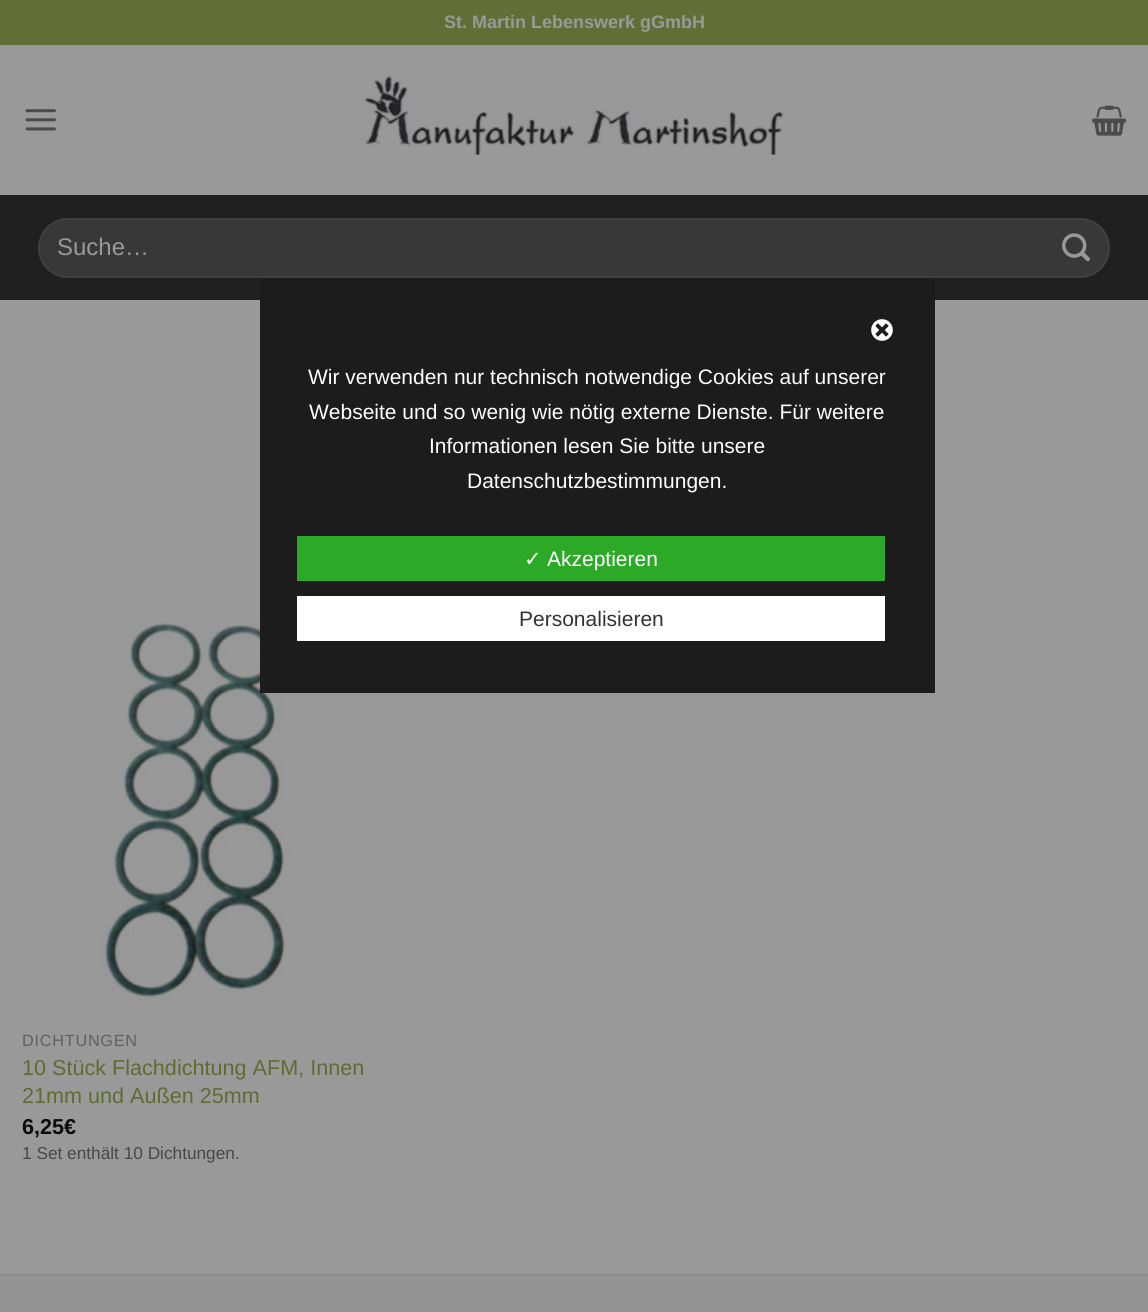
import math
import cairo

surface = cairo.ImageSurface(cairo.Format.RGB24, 1148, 1312)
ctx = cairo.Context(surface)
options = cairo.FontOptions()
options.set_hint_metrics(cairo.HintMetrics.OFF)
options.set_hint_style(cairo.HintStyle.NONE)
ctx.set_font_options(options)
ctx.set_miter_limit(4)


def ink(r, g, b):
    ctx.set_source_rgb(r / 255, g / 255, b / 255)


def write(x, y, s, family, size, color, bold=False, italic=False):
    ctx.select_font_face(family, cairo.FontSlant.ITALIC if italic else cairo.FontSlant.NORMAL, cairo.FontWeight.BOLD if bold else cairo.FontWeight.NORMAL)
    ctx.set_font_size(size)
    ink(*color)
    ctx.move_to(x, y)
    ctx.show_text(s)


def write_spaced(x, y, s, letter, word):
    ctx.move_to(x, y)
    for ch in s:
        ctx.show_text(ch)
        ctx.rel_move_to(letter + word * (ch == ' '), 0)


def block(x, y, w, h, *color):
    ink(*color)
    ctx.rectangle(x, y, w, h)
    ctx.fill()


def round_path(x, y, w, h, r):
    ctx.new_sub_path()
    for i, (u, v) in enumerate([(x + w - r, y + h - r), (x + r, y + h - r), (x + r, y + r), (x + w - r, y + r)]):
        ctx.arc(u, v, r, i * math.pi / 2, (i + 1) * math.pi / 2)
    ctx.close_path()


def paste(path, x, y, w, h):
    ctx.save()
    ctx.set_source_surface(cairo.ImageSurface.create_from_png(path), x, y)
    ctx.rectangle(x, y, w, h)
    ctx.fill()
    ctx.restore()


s1 = dict(family="Liberation Sans", size=18, color=(153, 153, 153), bold=True)
s2 = dict(family="Liberation Sans", size=24, color=(153, 153, 153))
s3 = dict(family="Liberation Sans", size=21.6, color=(95, 107, 49))
s4 = dict(family="Liberation Sans", size=21.6, color=(10, 10, 10), bold=True)
s5 = dict(family="Liberation Sans", size=17.25, color=(71, 71, 71))
s6 = dict(family="Liberation Sans", size=21, color=(255, 255, 255))
s7 = dict(family="DejaVu Sans", size=21, color=(255, 255, 255))
s8 = dict(family="Liberation Sans", size=21, color=(51, 51, 51))

ink(153, 153, 153)
ctx.paint()
block(0, 0, 1148, 45, 99, 110, 55)
write(444, 28, "St. Martin Lebenswerk gGmbH", **s1)
paste("pic1.png", 25, 109, 31, 22)
paste("pic2.png", 364, 76, 420, 79)
paste("pic3.png", 1092, 105, 35, 31)
block(0, 195, 1148, 105, 32, 32, 32)
ink(56, 56, 56)
round_path(38, 218, 1072, 60, 30)
ctx.fill()
round_path(39, 219, 1070, 58, 29)
ctx.set_source_rgba(0.6, 0.6, 0.6, 0.09)
ctx.stroke()
write(57, 255, "Suche…", **s2)
paste("pic4.png", 1062, 233, 28, 29)
paste("pic5.png", 102, 618, 188, 382)
ctx.set_font_size(16.25)
ink(96, 96, 96)
write_spaced(22, 1046, "DICHTUNGEN", 0.75, 0)
write(22, 1075, "10 Stück Flachdichtung AFM, Innen", **s3)
write(22, 1103, "21mm und Außen 25mm", **s3)
write(22, 1134, "6,25€", **s4)
write(22, 1159, "1 Set enthält 10 Dichtungen.", **s5)
block(0, 1276, 1148, 36, 148, 148, 148)
block(0, 1274, 1148, 2, 141, 141, 141)
block(260, 278, 675, 415, 29, 28, 28)
paste("pic6.png", 871, 319, 22, 22)
write(308, 384, "Wir verwenden nur technisch notwendige Cookies auf unserer", **s6)
write(309, 419, "Webseite und so wenig wie nötig externe Dienste. Für weitere", **s6)
write(429, 453, "Informationen lesen Sie bitte unsere", **s6)
write(467, 488, "Datenschutzbestimmungen.", **s6)
block(297, 536, 588, 45, 44, 170, 39)
write(524, 566, "✓", **s7)
write(547, 566, "Akzeptieren", **s6)
block(297, 596, 588, 45, 255, 255, 255)
write(519, 626, "Personalisieren", **s8)
surface.write_to_png("screenshot.png")
